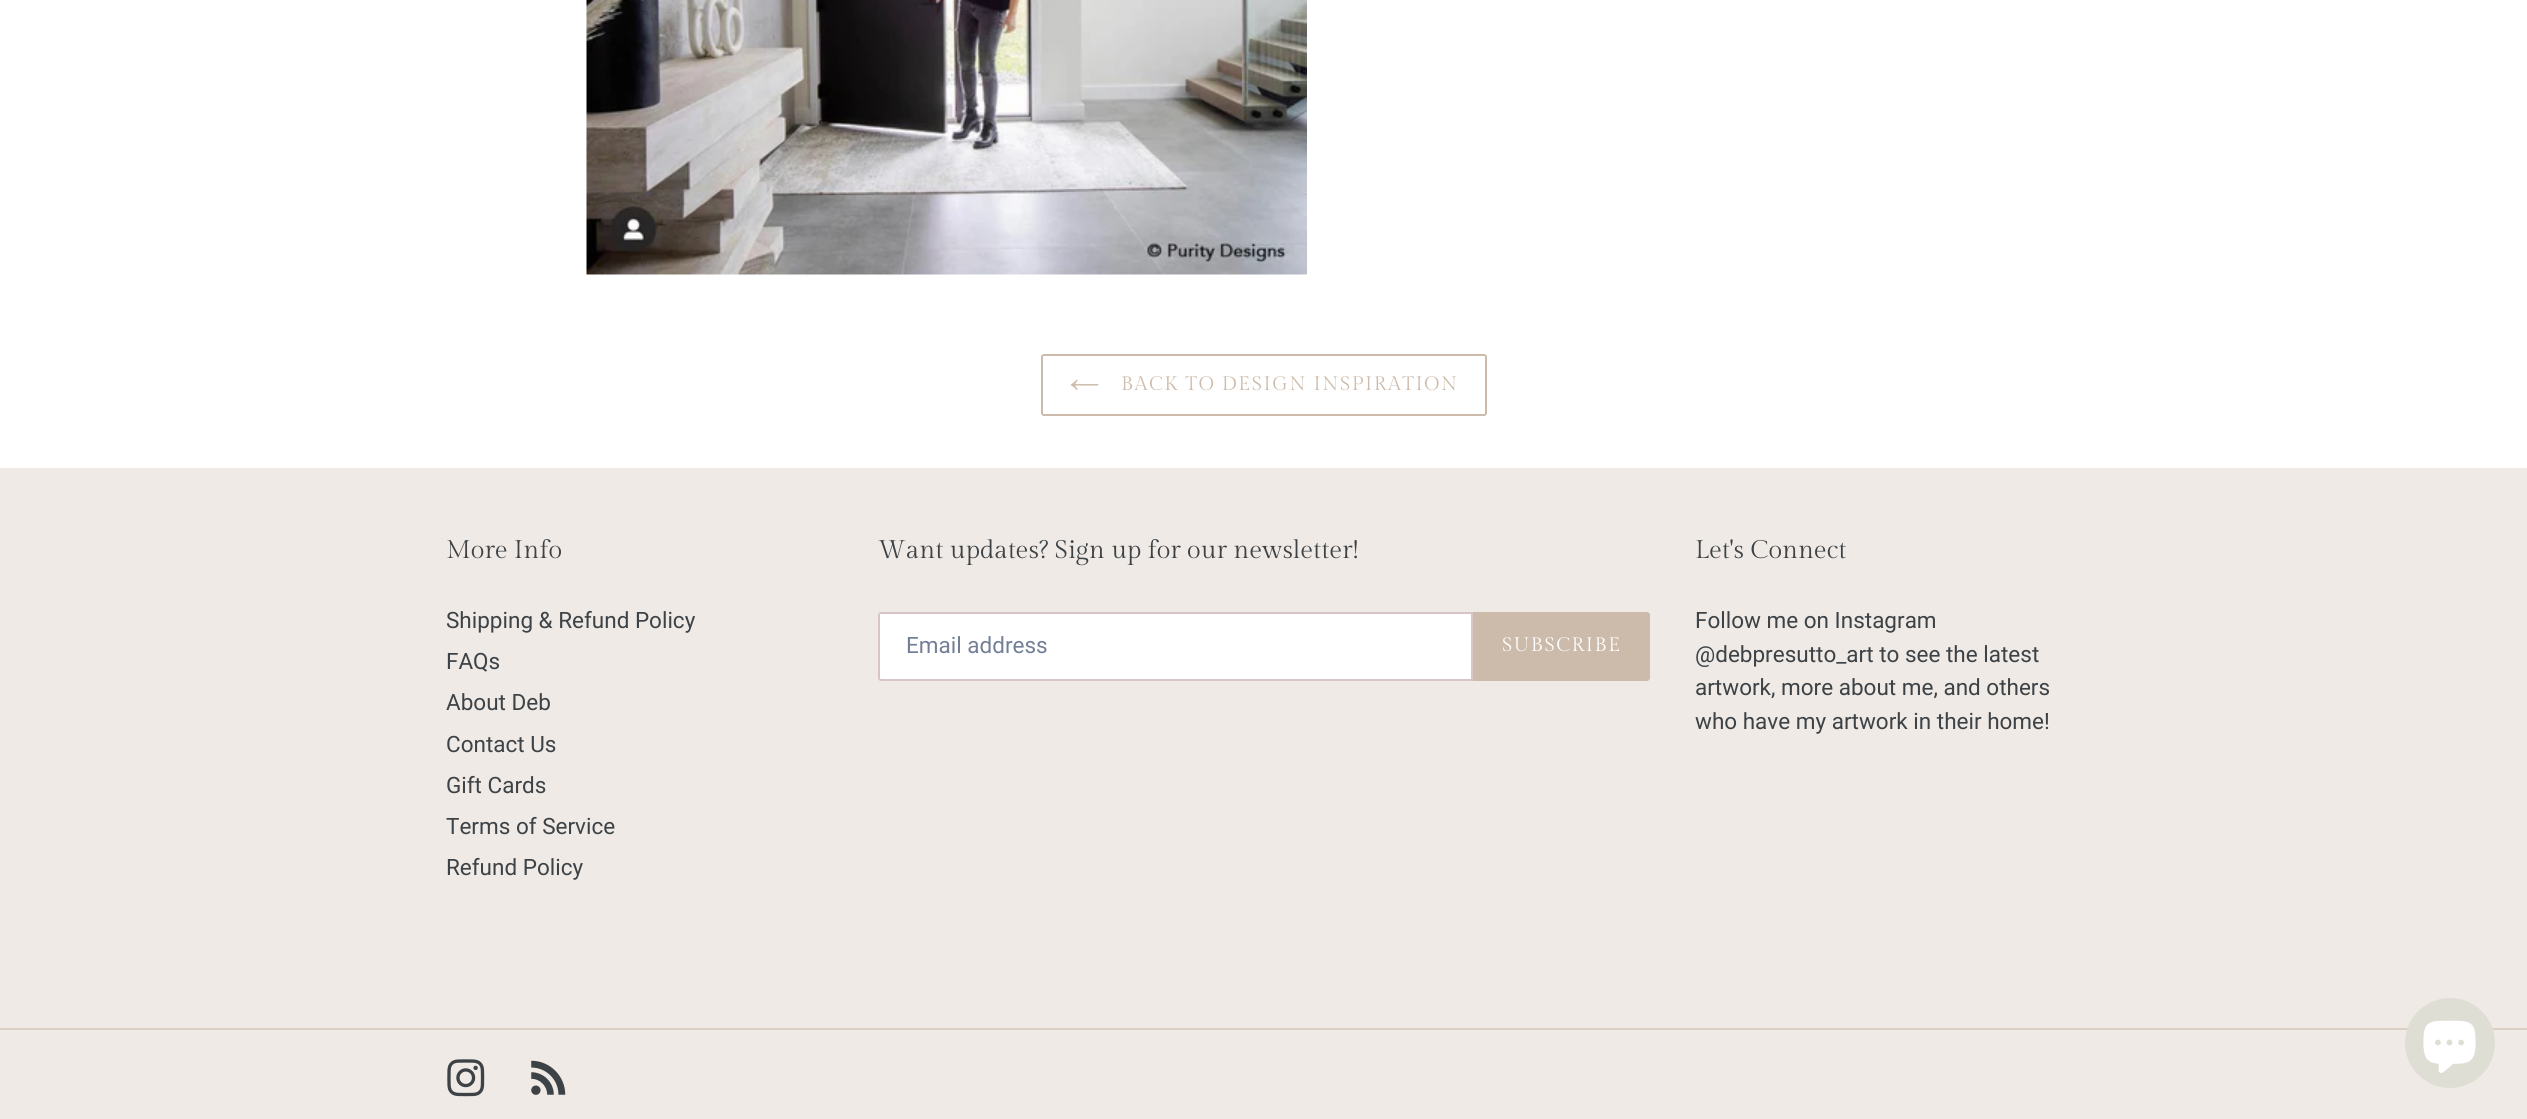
import math
import cairo

surface = cairo.ImageSurface(cairo.Format.RGB24, 2527, 1119)
ctx = cairo.Context(surface)
options = cairo.FontOptions()
options.set_hint_metrics(cairo.HintMetrics.OFF)
options.set_hint_style(cairo.HintStyle.NONE)
ctx.set_font_options(options)
ctx.set_miter_limit(4)


def ink(r, g, b):
    ctx.set_source_rgb(r / 255, g / 255, b / 255)


def write(x, y, s, family, size, color, bold=False, italic=False):
    ctx.select_font_face(family, cairo.FontSlant.ITALIC if italic else cairo.FontSlant.NORMAL, cairo.FontWeight.BOLD if bold else cairo.FontWeight.NORMAL)
    ctx.set_font_size(size)
    ink(*color)
    ctx.move_to(x, y)
    ctx.show_text(s)


def write_spaced(x, y, s, letter, word):
    ctx.move_to(x, y)
    for ch in s:
        ctx.show_text(ch)
        ctx.rel_move_to(letter + word * (ch == ' '), 0)


def block(x, y, w, h, *color):
    ink(*color)
    ctx.rectangle(x, y, w, h)
    ctx.fill()


def round_path(x, y, w, h, r):
    ctx.new_sub_path()
    for i, (u, v) in enumerate([(x + w - r, y + h - r), (x + r, y + h - r), (x + r, y + r), (x + w - r, y + r)]):
        ctx.arc(u, v, r, i * math.pi / 2, (i + 1) * math.pi / 2)
    ctx.close_path()


def paste(path, x, y, w, h):
    ctx.save()
    ctx.set_source_surface(cairo.ImageSurface.create_from_png(path), x, y)
    ctx.rectangle(x, y, w, h)
    ctx.fill()
    ctx.restore()


s1 = dict(family="Gilda Display", size=25.5, color=(61, 66, 70))
s2 = dict(family="Roboto", size=22.5, color=(61, 66, 70))
s3 = dict(family="Roboto", size=22.5, color=(115, 127, 150))

ink(255, 255, 255)
ctx.paint()
paste("pic1.png", 586, 0, 721, 275)
round_path(1042, 355, 444, 60, 2)
ink(204, 187, 171)
ctx.stroke()
paste("pic2.png", 1070, 379, 29, 12)
ctx.select_font_face("Gilda Display")
ctx.set_font_size(19.5)
write_spaced(1121, 390, "BACK TO DESIGN INSPIRATION", 1.55, 0)
block(0, 468, 2527, 651, 239, 234, 229)
write(446, 558, "More Info", **s1)
write(446, 628, "Shipping & Refund Policy", **s2)
write(446, 669, "FAQs", **s2)
write(446, 710, "About Deb", **s2)
write(446, 752, "Contact Us", **s2)
write(446, 793, "Gift Cards", **s2)
write(446, 834, "Terms of Service", **s2)
write(446, 875, "Refund Policy", **s2)
write(878, 558, "Want updates? Sign up for our newsletter!", **s1)
ink(255, 255, 255)
ctx.new_path()
ctx.move_to(881, 613)
ctx.line_to(1472, 613)
ctx.line_to(1472, 680)
ctx.line_to(881, 680)
ctx.curve_to(880, 680, 879, 679, 879, 678)
ctx.line_to(879, 615)
ctx.curve_to(879, 614, 880, 613, 881, 613)
ctx.close_path()
ctx.fill_preserve()
ink(214, 198, 198)
ctx.stroke()
write(906, 653, "Email address", **s3)
ink(204, 187, 171)
ctx.new_path()
ctx.move_to(1473, 612)
ctx.line_to(1647, 612)
ctx.curve_to(1648.5, 612, 1650, 613.5, 1650, 615)
ctx.line_to(1650, 678)
ctx.curve_to(1650, 679.5, 1648.5, 681, 1647, 681)
ctx.line_to(1473, 681)
ctx.close_path()
ctx.fill()
ctx.select_font_face("Gilda Display")
ctx.set_font_size(19.5)
ink(255, 255, 255)
write_spaced(1502, 651, "SUBSCRIBE", 1.55, 0)
write(1695, 558, "Let's Connect", **s1)
write(1695, 628, "Follow me on Instagram", **s2)
write(1695, 662, "@debpresutto_art to see the latest", **s2)
write(1695, 695, "artwork, more about me, and others", **s2)
write(1695, 729, "who have my artwork in their home!", **s2)
block(0, 1028, 2527, 2, 220, 208, 197)
paste("pic3.png", 447, 1059, 38, 38)
paste("pic4.png", 531, 1060, 35, 35)
ink(223, 222, 213)
ctx.arc(2450, 1043, 45, 0, 2 * math.pi)
ctx.fill()
paste("pic5.png", 2423, 1020, 53, 53)
surface.write_to_png("screenshot.png")
